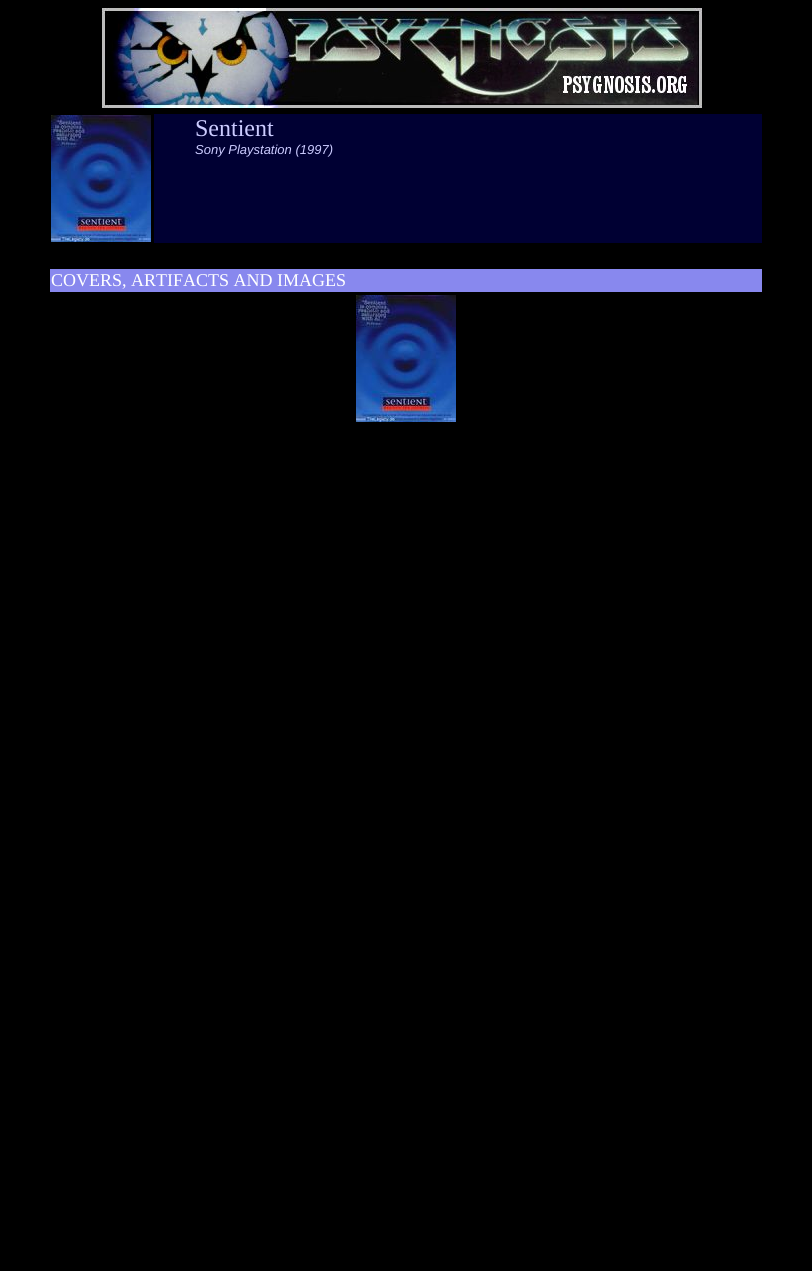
import math
import cairo

surface = cairo.ImageSurface(cairo.Format.RGB24, 812, 1271)
ctx = cairo.Context(surface)
options = cairo.FontOptions()
options.set_hint_metrics(cairo.HintMetrics.OFF)
options.set_hint_style(cairo.HintStyle.NONE)
ctx.set_font_options(options)
ctx.set_miter_limit(4)


def ink(r, g, b):
    ctx.set_source_rgb(r / 255, g / 255, b / 255)


def write(x, y, s, family, size, color, bold=False, italic=False):
    ctx.select_font_face(family, cairo.FontSlant.ITALIC if italic else cairo.FontSlant.NORMAL, cairo.FontWeight.BOLD if bold else cairo.FontWeight.NORMAL)
    ctx.set_font_size(size)
    ink(*color)
    ctx.move_to(x, y)
    ctx.show_text(s)


def block(x, y, w, h, *color):
    ink(*color)
    ctx.rectangle(x, y, w, h)
    ctx.fill()


def paste(path, x, y, w, h):
    ctx.save()
    ctx.set_source_surface(cairo.ImageSurface.create_from_png(path), x, y)
    ctx.rectangle(x, y, w, h)
    ctx.fill()
    ctx.restore()


s1 = dict(family="Liberation Serif", size=24, color=(204, 204, 255))
s2 = dict(family="Liberation Sans", size=13, color=(204, 204, 255), italic=True)
s3 = dict(family="Liberation Serif", size=18, color=(255, 255, 255))

ink(0, 0, 0)
ctx.paint()
paste("pic1.png", 102, 8, 600, 100)
paste("pic2.png", 51, 115, 100, 127)
block(154, 114, 608, 129, 0, 0, 51)
write(195, 136, "Sentient", **s1)
write(195, 154, "Sony Playstation (1997)", **s2)
block(50, 269, 712, 23, 136, 136, 238)
write(51, 286, "COVERS, ARTIFACTS AND IMAGES", **s3)
paste("pic2.png", 356, 295, 100, 127)
surface.write_to_png("screenshot.png")
